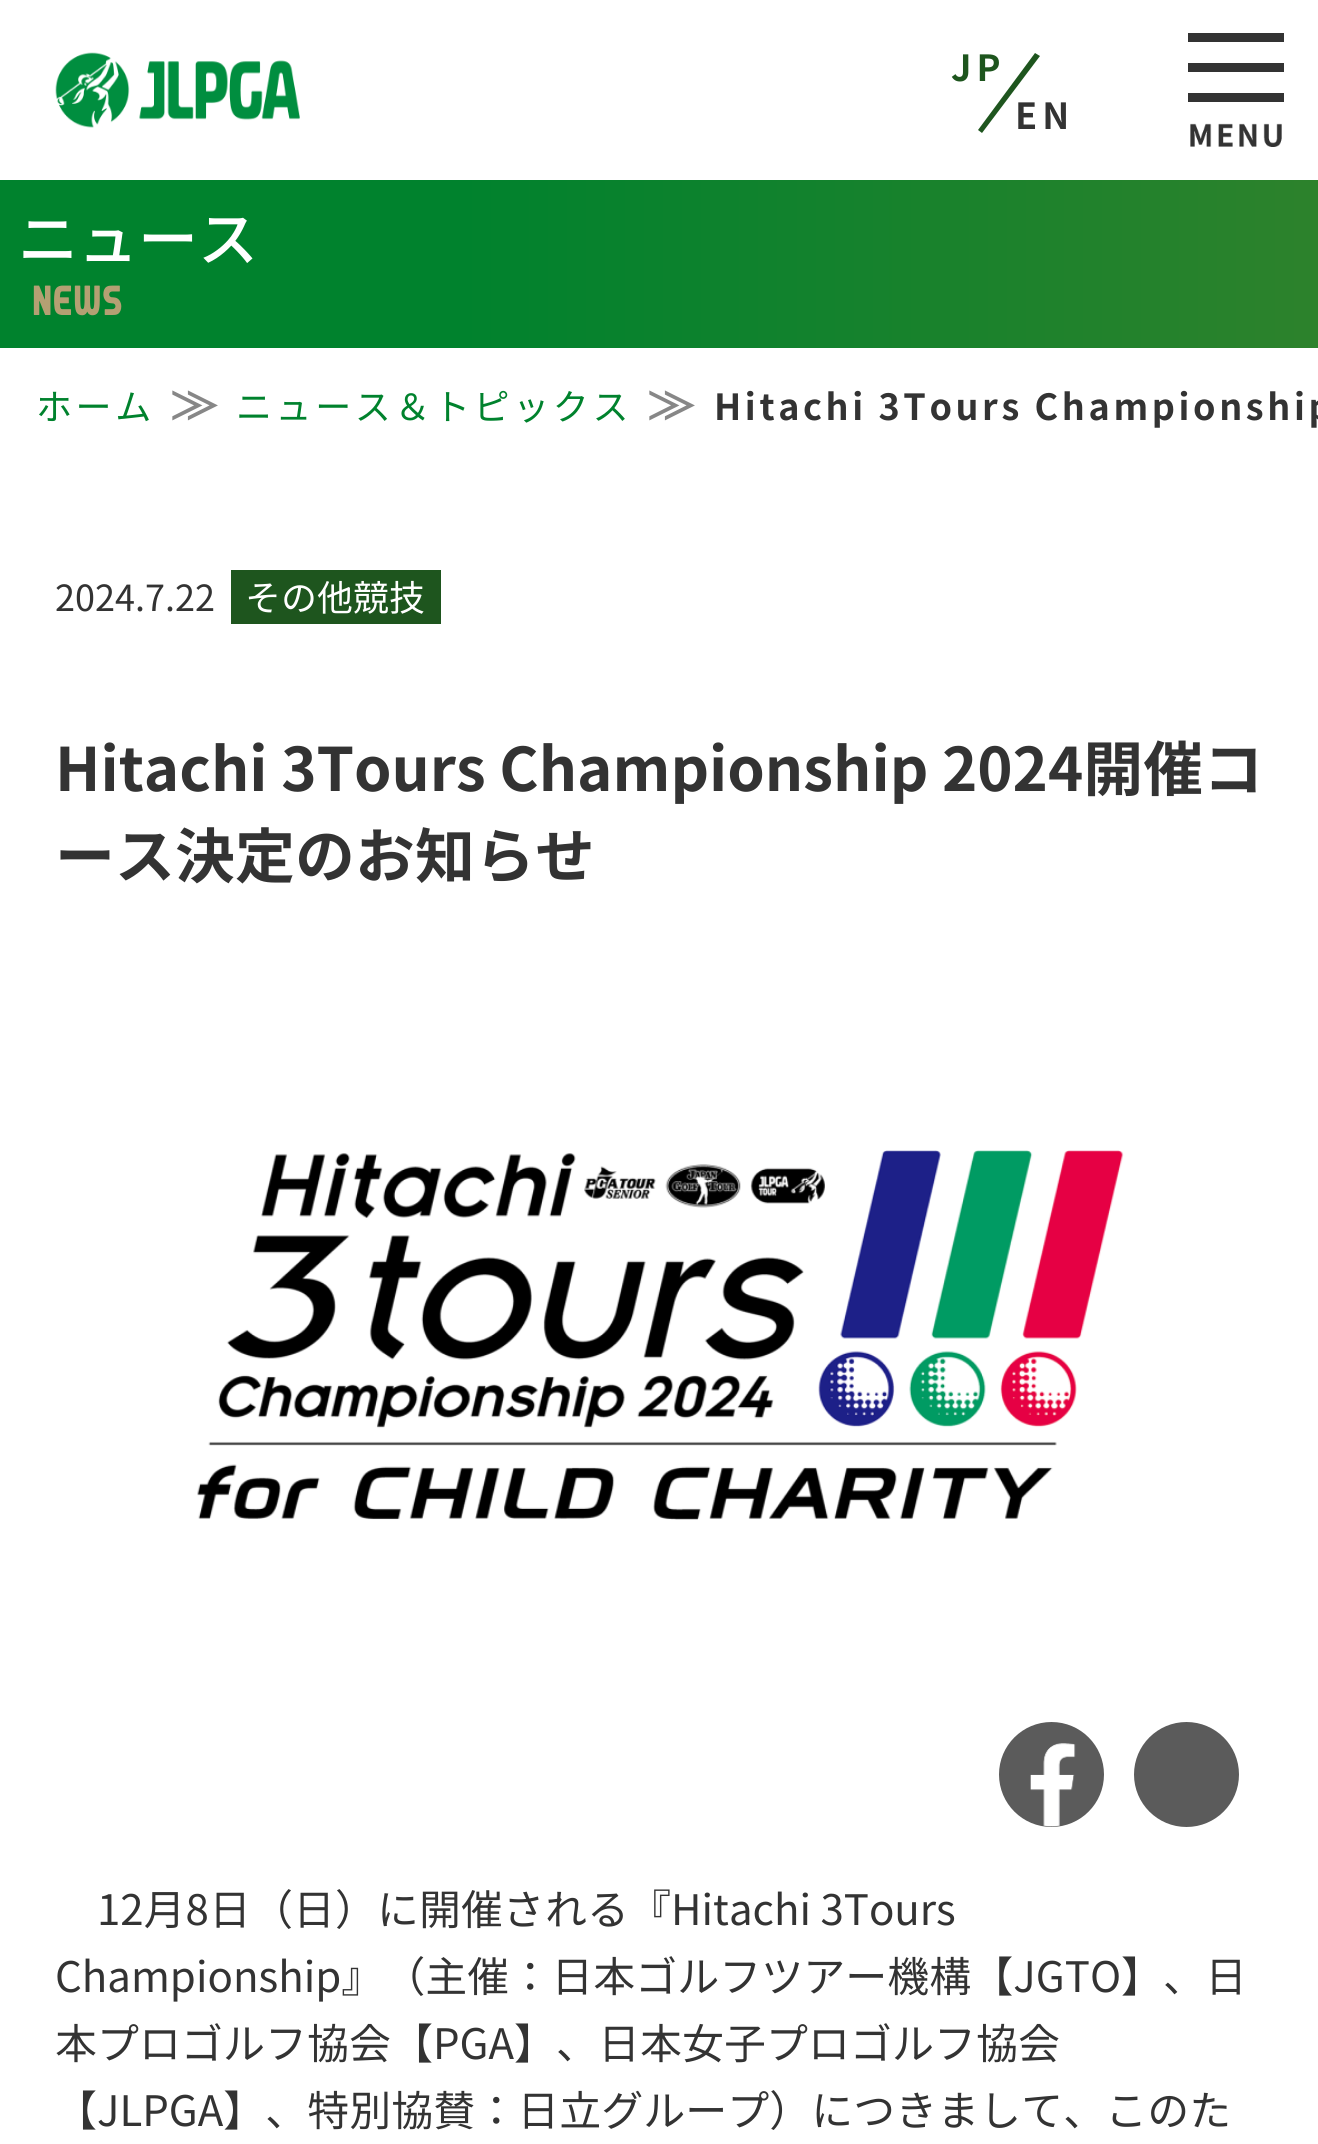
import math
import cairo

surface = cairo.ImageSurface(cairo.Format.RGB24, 1318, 2144)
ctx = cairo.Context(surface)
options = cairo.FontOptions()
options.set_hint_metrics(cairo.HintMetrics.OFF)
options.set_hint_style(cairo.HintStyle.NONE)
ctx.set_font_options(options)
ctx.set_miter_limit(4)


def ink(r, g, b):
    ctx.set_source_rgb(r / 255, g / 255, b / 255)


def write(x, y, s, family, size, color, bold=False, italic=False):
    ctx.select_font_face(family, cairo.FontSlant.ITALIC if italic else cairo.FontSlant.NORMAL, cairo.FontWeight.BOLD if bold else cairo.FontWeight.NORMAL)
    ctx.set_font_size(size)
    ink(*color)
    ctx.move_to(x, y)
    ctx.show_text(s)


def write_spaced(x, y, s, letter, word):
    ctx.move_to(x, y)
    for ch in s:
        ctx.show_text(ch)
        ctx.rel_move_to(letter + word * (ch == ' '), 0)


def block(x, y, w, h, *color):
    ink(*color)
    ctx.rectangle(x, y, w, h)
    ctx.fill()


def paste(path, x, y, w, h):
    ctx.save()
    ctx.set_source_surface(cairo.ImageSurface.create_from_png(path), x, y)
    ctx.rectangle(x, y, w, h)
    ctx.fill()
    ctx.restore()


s1 = dict(family="Noto Sans JP Medium", size=60, color=(255, 255, 255))
s2 = dict(family="Noto Sans JP", size=36, color=(51, 51, 51))
s3 = dict(family="Noto Sans JP", size=36, color=(255, 255, 255))
s4 = dict(family="Noto Sans JP", size=60, color=(51, 51, 51), bold=True)
s5 = dict(family="Noto Sans JP", size=42, color=(51, 51, 51))

ink(255, 255, 255)
ctx.paint()
paste("pic1.png", 55, 52, 245, 76)
ctx.select_font_face("Noto Sans JP", cairo.FontSlant.NORMAL, cairo.FontWeight.BOLD)
ctx.set_font_size(36)
ink(30, 85, 30)
write_spaced(951, 81, "JP", 5, 0)
ctx.new_path()
ctx.move_to(978, 130)
ctx.line_to(1035, 53)
ctx.line_to(1040, 56)
ctx.line_to(982, 133)
ctx.close_path()
ctx.fill()
ink(51, 51, 51)
write_spaced(1015, 129, "EN", 5, 0)
paste("pic2.png", 1188, 33, 96, 114)
gradient = cairo.LinearGradient(0, 264, 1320, 264)
gradient.add_color_stop_rgba(0, 0, 0.51, 0.176, 1)
gradient.add_color_stop_rgba(0.35, 0, 0.51, 0.176, 1)
gradient.add_color_stop_rgba(1, 0.176, 0.51, 0.173, 1)
ctx.set_source(gradient)
ctx.rectangle(0, 180, 1318, 168)
ctx.fill()
write(18, 261, "ニュース", **s1)
ctx.select_font_face("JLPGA")
ctx.set_font_size(42)
ink(180, 160, 115)
write_spaced(33, 315, "NEWS", 2, 0)
ctx.select_font_face("Noto Sans JP")
ctx.set_font_size(36)
ink(0, 130, 45)
write_spaced(36, 420, "ホーム", 3.6, 0)
ctx.select_font_face("WenQuanYi Zen Hei", cairo.FontSlant.NORMAL, cairo.FontWeight.BOLD)
ctx.set_font_size(48)
ink(135, 135, 135)
write_spaced(170, 420, "≫", 3.6, 0)
ctx.select_font_face("Noto Sans JP")
ctx.set_font_size(36)
ink(0, 130, 45)
write_spaced(236, 420, "ニュース＆トピックス", 3.6, 0)
ctx.select_font_face("WenQuanYi Zen Hei", cairo.FontSlant.NORMAL, cairo.FontWeight.BOLD)
ctx.set_font_size(48)
ink(135, 135, 135)
write_spaced(647, 420, "≫", 3.6, 0)
ctx.select_font_face("Noto Sans JP", cairo.FontSlant.NORMAL, cairo.FontWeight.BOLD)
ctx.set_font_size(36)
ink(51, 51, 51)
write_spaced(714, 420, "Hitachi 3Tours Championship", 3.6, 0)
write(55, 611, "2024.7.22", **s2)
block(231, 570, 210, 54, 30, 85, 30)
write(245, 611, "その他競技", **s3)
write(55, 791, "Hitachi 3Tours Championship 2024開催コ", **s4)
write(55, 878, "ース決定のお知らせ", **s4)
paste("pic3.png", 197, 1150, 927, 370)
ink(91, 91, 91)
ctx.arc(1051.5, 1774.5, 52.5, 0, 2 * math.pi)
ctx.fill()
paste("pic4.png", 1030, 1743, 46, 84)
ctx.arc(1186.5, 1774.5, 52.5, 0, 2 * math.pi)
ctx.fill()
write(97, 1925, "12月8日（日）に開催される『Hitachi 3Tours", **s5)
write(55, 1992, "Championship』（主催：日本ゴルフツアー機構【JGTO】、日", **s5)
write(55, 2059, "本プロゴルフ協会【PGA】、日本女子プロゴルフ協会", **s5)
write(55, 2126, "【JLPGA】、特別協賛：日立グループ）につきまして、このた", **s5)
surface.write_to_png("screenshot.png")
